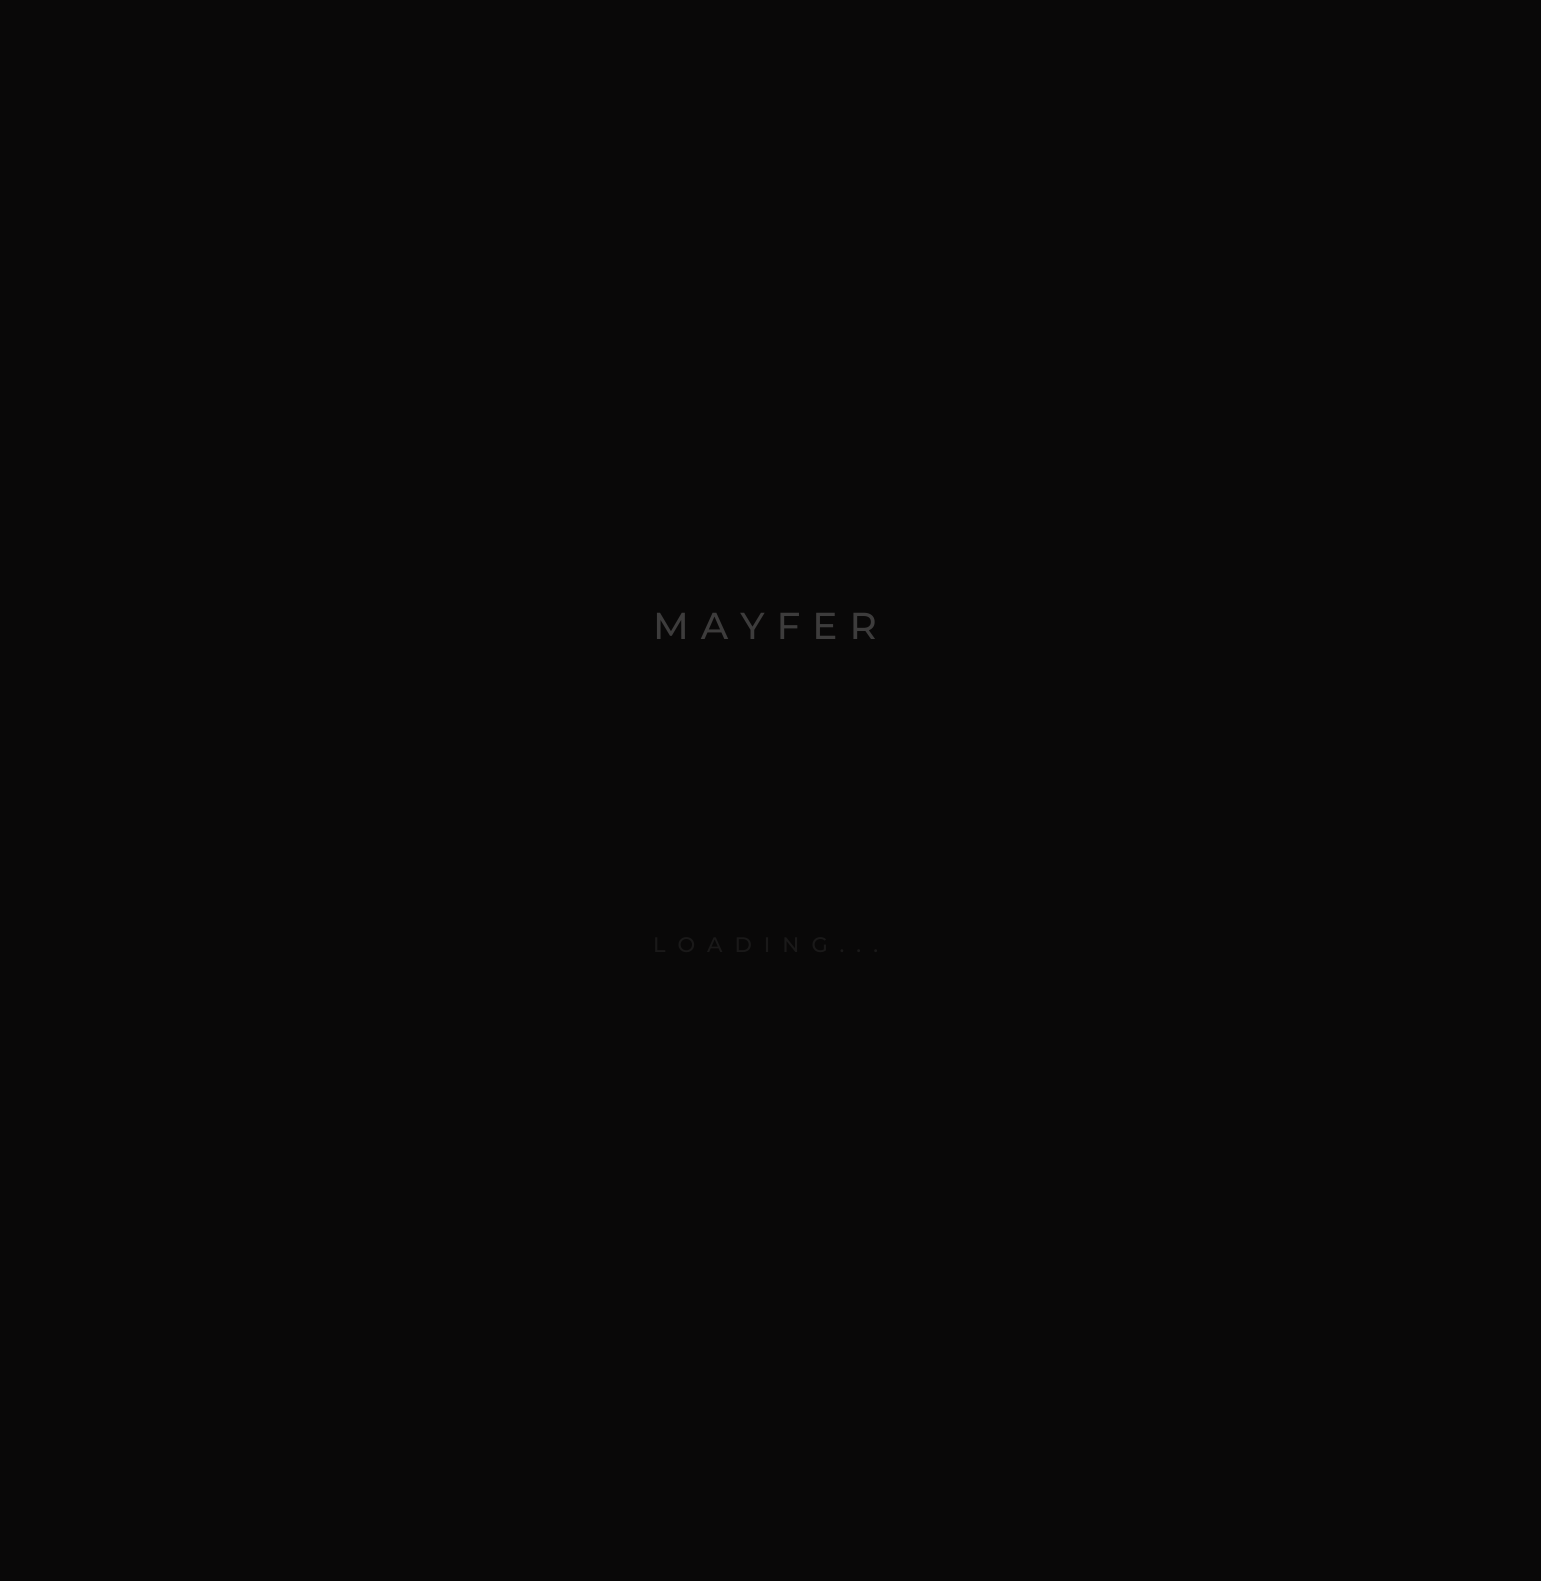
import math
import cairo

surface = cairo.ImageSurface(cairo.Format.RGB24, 1541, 1581)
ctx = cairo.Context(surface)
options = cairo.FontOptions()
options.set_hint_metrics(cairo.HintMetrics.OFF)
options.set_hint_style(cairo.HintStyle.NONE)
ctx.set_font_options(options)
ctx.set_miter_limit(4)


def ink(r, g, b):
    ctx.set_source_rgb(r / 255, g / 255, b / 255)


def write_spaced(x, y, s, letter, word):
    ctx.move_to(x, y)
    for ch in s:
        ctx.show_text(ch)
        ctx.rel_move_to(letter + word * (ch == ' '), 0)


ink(9, 8, 8)
ctx.paint()
ctx.select_font_face("Montserrat Medium")
ctx.set_font_size(37.5)
ink(61, 60, 60)
write_spaced(653, 639, "MAYFER", 12, 0)
ctx.set_font_size(21)
ink(26, 25, 25)
write_spaced(653, 952, "LOADING...", 12, 0)
surface.write_to_png("screenshot.png")
